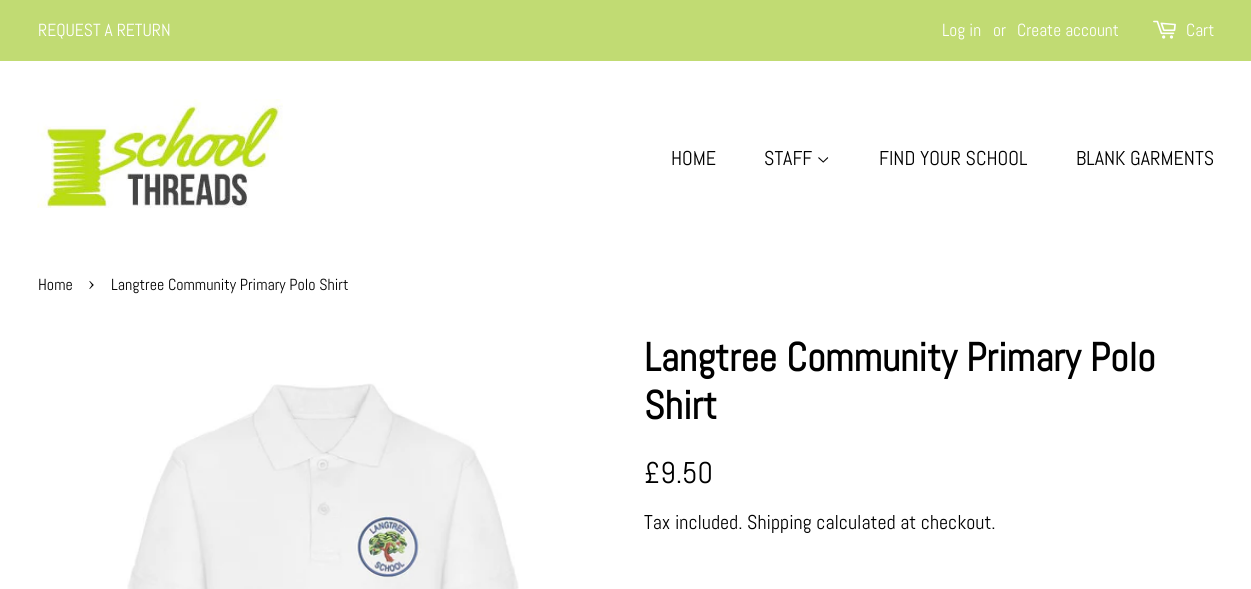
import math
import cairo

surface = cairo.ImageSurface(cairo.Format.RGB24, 1251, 589)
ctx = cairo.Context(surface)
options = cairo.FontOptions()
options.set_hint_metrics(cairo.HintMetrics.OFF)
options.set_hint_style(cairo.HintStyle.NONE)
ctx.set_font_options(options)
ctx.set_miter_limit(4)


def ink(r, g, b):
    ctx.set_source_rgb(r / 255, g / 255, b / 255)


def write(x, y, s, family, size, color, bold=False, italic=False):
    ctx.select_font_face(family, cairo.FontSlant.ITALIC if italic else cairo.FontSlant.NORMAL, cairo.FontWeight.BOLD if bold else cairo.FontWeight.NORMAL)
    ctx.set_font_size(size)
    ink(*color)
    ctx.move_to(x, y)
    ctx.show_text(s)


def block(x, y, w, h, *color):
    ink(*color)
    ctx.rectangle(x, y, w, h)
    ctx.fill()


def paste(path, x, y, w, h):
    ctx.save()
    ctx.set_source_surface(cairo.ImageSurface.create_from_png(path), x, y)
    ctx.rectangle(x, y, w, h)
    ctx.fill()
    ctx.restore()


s1 = dict(family="Abel", size=17.5, color=(255, 255, 255))
s2 = dict(family="Abel", size=20, color=(0, 0, 0))
s3 = dict(family="Abel", size=16, color=(0, 0, 0))
s4 = dict(family="Abel", size=22, color=(0, 0, 0))
s5 = dict(family="Abel", size=40, color=(0, 0, 0), bold=True)
s6 = dict(family="Abel", size=30, color=(0, 0, 0))

ink(255, 255, 255)
ctx.paint()
block(0, 0, 1251, 61, 193, 219, 115)
write(38, 36, "REQUEST A RETURN", **s1)
write(942, 36, "Log in", **s1)
write(993, 36, "or", **s1)
write(1017, 36, "Create account", **s1)
paste("pic1.png", 1153, 20, 23, 19)
write(1186, 36, "Cart", **s1)
paste("pic2.png", 37, 99, 246, 109)
write(671, 165, "HOME", **s2)
write(764, 165, "STAFF", **s2)
paste("pic3.png", 818, 157, 11, 6)
write(879, 165, "FIND YOUR SCHOOL", **s2)
write(1076, 165, "BLANK GARMENTS", **s2)
write(38, 290, "Home", **s3)
write(88, 290, "›", **s4)
write(111, 290, "Langtree Community Primary Polo Shirt", **s3)
paste("pic4.png", 127, 383, 392, 206)
write(644, 371, "Langtree Community Primary Polo", **s5)
write(644, 419, "Shirt", **s5)
write(644, 483, "£9.50", **s6)
write(644, 529, "Tax included. Shipping calculated at checkout.", **s2)
surface.write_to_png("screenshot.png")
